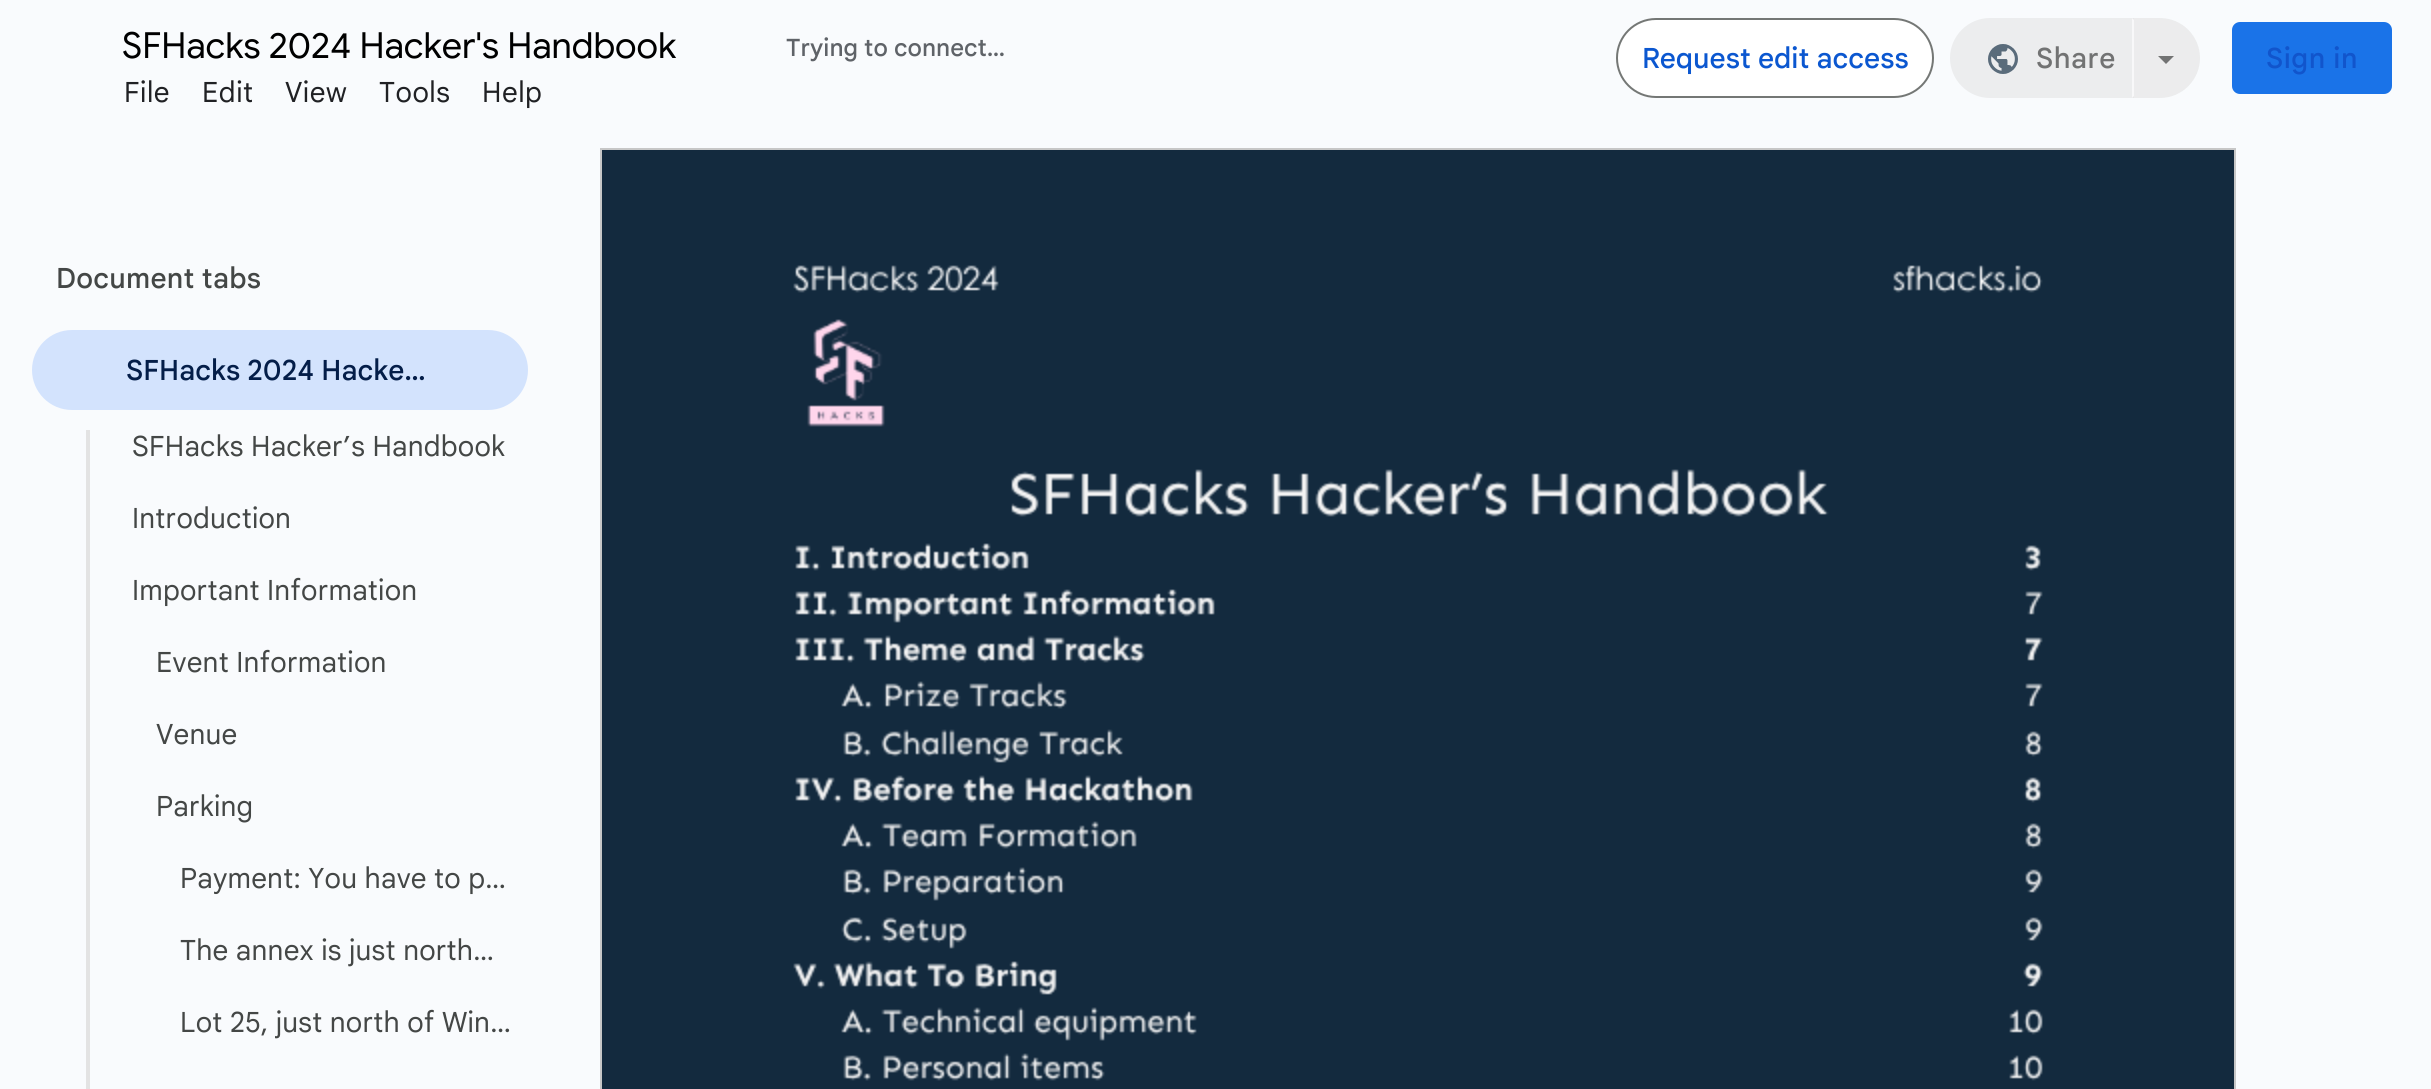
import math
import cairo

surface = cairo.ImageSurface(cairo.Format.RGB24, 2431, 1089)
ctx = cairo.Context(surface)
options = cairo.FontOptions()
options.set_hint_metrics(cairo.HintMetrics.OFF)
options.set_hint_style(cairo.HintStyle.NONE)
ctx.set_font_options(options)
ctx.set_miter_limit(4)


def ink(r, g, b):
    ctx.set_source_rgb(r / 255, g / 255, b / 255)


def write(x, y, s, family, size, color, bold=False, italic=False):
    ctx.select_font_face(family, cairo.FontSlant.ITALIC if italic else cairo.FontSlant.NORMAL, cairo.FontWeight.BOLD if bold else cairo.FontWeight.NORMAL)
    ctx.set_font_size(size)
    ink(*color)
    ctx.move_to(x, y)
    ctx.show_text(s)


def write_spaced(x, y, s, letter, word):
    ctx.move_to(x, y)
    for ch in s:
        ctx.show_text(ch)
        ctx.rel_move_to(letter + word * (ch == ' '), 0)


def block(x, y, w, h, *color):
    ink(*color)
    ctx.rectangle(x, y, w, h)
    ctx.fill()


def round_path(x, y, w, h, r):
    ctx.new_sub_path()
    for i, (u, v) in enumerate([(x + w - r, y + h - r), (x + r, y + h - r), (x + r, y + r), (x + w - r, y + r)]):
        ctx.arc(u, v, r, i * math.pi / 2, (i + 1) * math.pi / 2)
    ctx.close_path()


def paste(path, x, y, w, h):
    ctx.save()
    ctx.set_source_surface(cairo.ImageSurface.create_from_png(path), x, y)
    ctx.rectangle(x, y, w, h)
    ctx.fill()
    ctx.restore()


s1 = dict(family="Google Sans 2", size=36, color=(0, 0, 0))
s2 = dict(family="Google Sans Medium", size=24, color=(95, 99, 104))
s3 = dict(family="Google Sans Medium", size=28, color=(11, 87, 208))
s4 = dict(family="Google Sans Medium", size=28, color=(4, 30, 73))

ink(249, 251, 253)
ctx.paint()
write(122, 58, "SFHacks 2024 Hacker's Handbook", **s1)
write(786, 56, "Trying to connect…", **s2)
ink(255, 255, 255)
round_path(1617, 19, 316, 78, 39)
ctx.fill_preserve()
ink(116, 119, 117)
ctx.stroke()
write(1642, 68, "Request edit access", **s3)
ink(236, 237, 238)
ctx.new_path()
ctx.move_to(1990, 18)
ctx.line_to(2134, 18)
ctx.line_to(2134, 98)
ctx.line_to(1990, 98)
ctx.curve_to(1968, 98, 1950, 80, 1950, 58)
ctx.curve_to(1950, 36, 1968, 18, 1990, 18)
ctx.close_path()
ctx.fill()
paste("pic1.png", 1988, 44, 30, 30)
ink(114, 115, 115)
write_spaced(2036, 68, "Share", 0.5, 0)
ctx.set_source_rgba(0.894, 0.894, 0.894, 0.62)
ctx.new_path()
ctx.move_to(2132, 18)
ctx.line_to(2160, 18)
ctx.curve_to(2182, 18, 2200, 36, 2200, 58)
ctx.curve_to(2200, 80, 2182, 98, 2160, 98)
ctx.line_to(2132, 98)
ctx.close_path()
ctx.fill()
ink(248, 248, 249)
ctx.new_path()
ctx.move_to(2134, 20)
ctx.line_to(2132, 18)
ctx.line_to(2132, 98)
ctx.line_to(2134, 96)
ctx.close_path()
ctx.fill()
ink(114, 115, 115)
ctx.new_path()
ctx.move_to(2158, 56)
ctx.line_to(2174, 56)
ctx.line_to(2166, 64)
ctx.close_path()
ctx.fill()
ink(26, 115, 232)
round_path(2232, 22, 160, 72, 8)
ctx.fill()
ink(17, 85, 204)
write_spaced(2266, 68, "Sign in", 0.5, 0)
ctx.select_font_face("Google Sans")
ink(32, 33, 36)
write_spaced(124, 102, "File", 0.5, 0)
write_spaced(202, 102, "Edit", 0.5, 0)
write_spaced(285, 102, "View", 0.5, 0)
write_spaced(379, 102, "Tools", 0.5, 0)
write_spaced(482, 102, "Help", 0.5, 0)
ctx.select_font_face("Google Sans Medium")
ink(68, 71, 70)
write_spaced(56, 288, "Document tabs", 0.2, 0)
ink(211, 227, 253)
round_path(32, 330, 496, 80, 40)
ctx.fill()
write(126, 380, "SFHacks 2024 Hacke…", **s4)
block(86, 430, 4, 659, 227, 227, 227)
ctx.select_font_face("Google Sans")
ink(68, 71, 70)
write_spaced(132, 456, "SFHacks Hacker’s Handbook", 0.2, 0)
write_spaced(132, 528, "Introduction", 0.2, 0)
write_spaced(132, 600, "Important Information", 0.2, 0)
write_spaced(156, 672, "Event Information", 0.2, 0)
write_spaced(156, 744, "Venue", 0.2, 0)
write_spaced(156, 816, "Parking", 0.2, 0)
write_spaced(180, 888, "Payment: You have to p…", 0.2, 0)
write_spaced(180, 960, "The annex is just north…", 0.2, 0)
write_spaced(180, 1032, "Lot 25, just north of Win…", 0.2, 0)
ctx.rectangle(601, 149, 1634, 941)
ink(199, 199, 199)
ctx.stroke()
paste("pic2.png", 602, 150, 1632, 939)
surface.write_to_png("screenshot.png")
